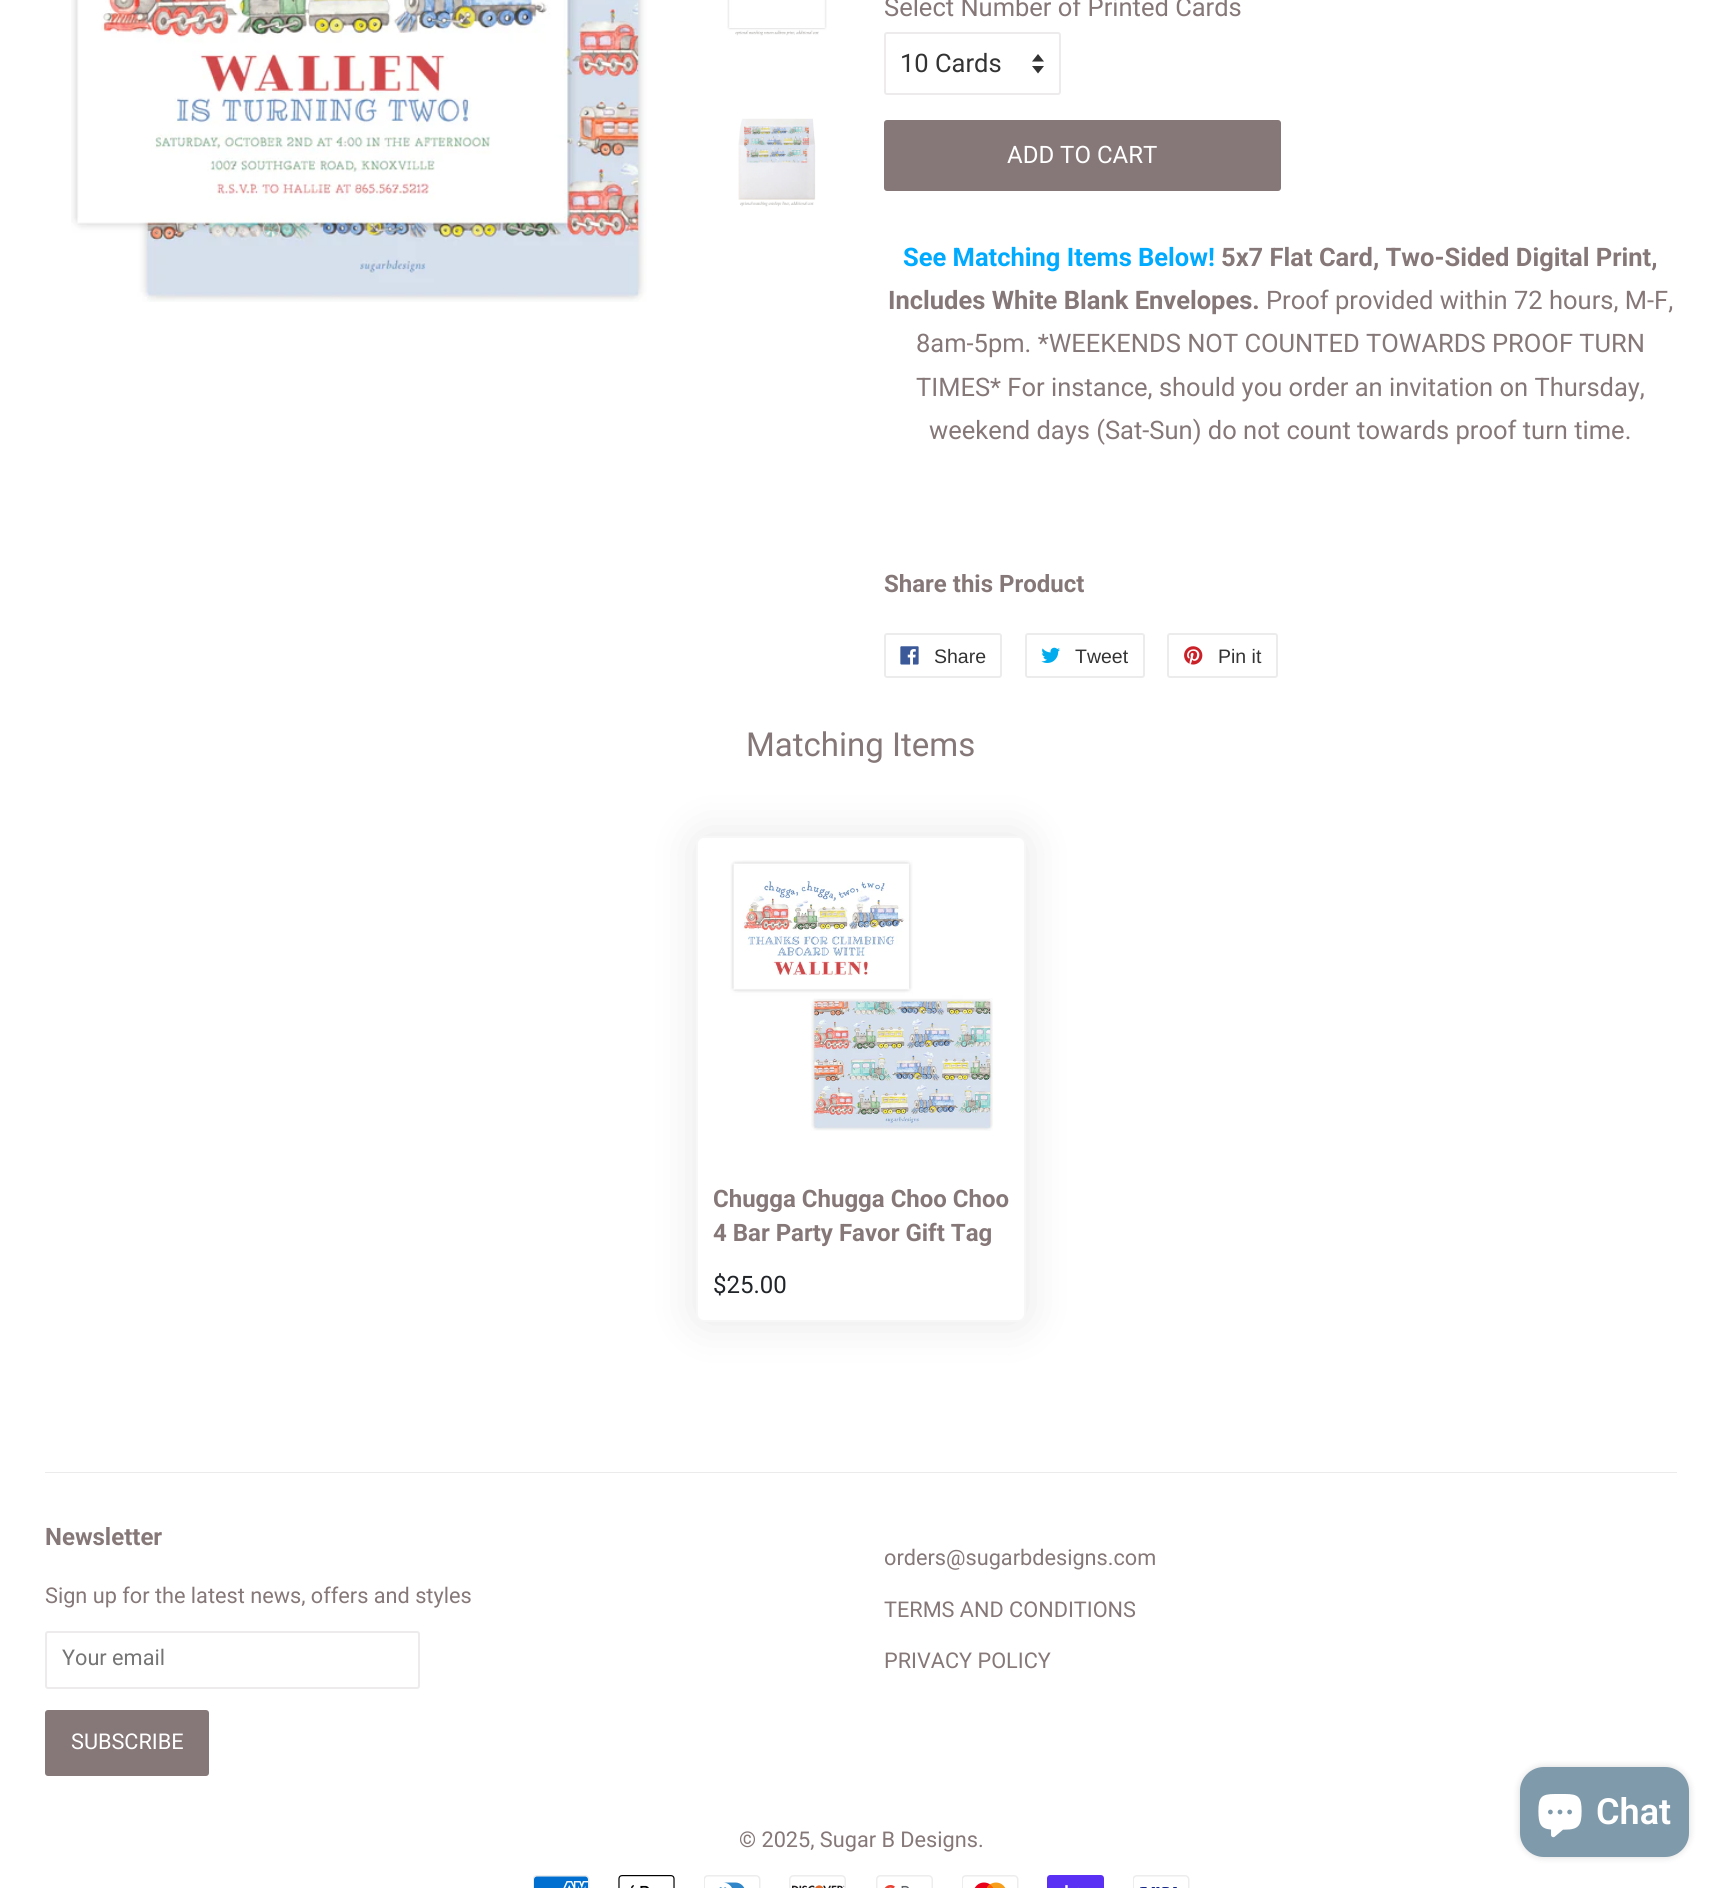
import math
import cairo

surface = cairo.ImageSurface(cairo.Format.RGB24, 1721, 1888)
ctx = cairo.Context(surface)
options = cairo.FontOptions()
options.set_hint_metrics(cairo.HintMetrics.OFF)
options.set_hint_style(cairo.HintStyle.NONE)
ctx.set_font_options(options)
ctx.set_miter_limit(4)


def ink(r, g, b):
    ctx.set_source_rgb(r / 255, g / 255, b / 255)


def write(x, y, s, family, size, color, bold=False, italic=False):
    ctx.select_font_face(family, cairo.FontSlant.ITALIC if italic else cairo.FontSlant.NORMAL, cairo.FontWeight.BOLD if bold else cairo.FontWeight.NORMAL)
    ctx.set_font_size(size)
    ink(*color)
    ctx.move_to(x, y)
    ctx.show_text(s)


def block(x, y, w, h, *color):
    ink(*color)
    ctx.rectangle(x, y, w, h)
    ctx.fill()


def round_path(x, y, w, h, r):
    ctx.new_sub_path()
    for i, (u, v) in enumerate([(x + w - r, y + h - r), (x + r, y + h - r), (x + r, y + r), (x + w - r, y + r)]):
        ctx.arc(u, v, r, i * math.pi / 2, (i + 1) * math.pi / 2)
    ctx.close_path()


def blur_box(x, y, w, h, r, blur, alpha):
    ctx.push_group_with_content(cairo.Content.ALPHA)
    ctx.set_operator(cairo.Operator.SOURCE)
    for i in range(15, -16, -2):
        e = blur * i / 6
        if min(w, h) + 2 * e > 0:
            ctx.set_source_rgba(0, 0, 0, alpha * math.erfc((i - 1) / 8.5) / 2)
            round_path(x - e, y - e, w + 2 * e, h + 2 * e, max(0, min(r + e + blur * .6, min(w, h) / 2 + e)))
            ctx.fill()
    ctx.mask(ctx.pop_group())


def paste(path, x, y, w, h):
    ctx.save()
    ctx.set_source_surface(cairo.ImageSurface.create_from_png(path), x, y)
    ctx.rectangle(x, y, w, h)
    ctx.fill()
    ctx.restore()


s1 = dict(family="Roboto", size=25.5, color=(134, 120, 120))
s2 = dict(family="Roboto", size=25.5, color=(51, 51, 51))
s3 = dict(family="Roboto", size=24, color=(255, 255, 255))
s4 = dict(family="Roboto", size=25.5, color=(0, 170, 255), bold=True)
s5 = dict(family="Roboto", size=25.5, color=(134, 120, 120), bold=True)
s6 = dict(family="Roboto", size=24, color=(134, 120, 120), bold=True)
s7 = dict(family="Liberation Sans", size=19.5, color=(51, 51, 51))
s8 = dict(family="Roboto", size=33, color=(134, 120, 120))
s9 = dict(family="Roboto", size=24, color=(33, 37, 41))
s10 = dict(family="Roboto", size=21.7, color=(134, 120, 120))
s11 = dict(family="Roboto", size=21.7, color=(117, 117, 117))
s12 = dict(family="Roboto", size=21.7, color=(255, 255, 255))
s13 = dict(family="Roboto SemiBold", size=36, color=(255, 255, 255))

ink(255, 255, 255)
ctx.paint()
paste("pic1.png", 71, 0, 576, 302)
paste("pic2.png", 727, 0, 100, 36)
paste("pic3.png", 738, 118, 78, 89)
write(884, 16, "Select Number of Printed Cards", **s1)
paste("pic4.png", 1032, 54, 12, 20)
round_path(885, 33, 175, 61, 2)
ink(237, 235, 235)
ctx.stroke()
write(900, 72, "10 Cards", **s2)
ink(134, 120, 120)
round_path(884, 120, 397, 71, 3)
ctx.fill()
write(1007, 163, "ADD TO CART", **s3)
write(903, 266, "See Matching Items Below!", **s4)
write(1221, 266, "5x7 Flat Card, Two-Sided Digital Print,", **s5)
write(888, 309, "Includes White Blank Envelopes.", **s5)
write(1266, 309, "Proof provided within 72 hours, M-F,", **s1)
write(916, 352, "8am-5pm. *WEEKENDS NOT COUNTED TOWARDS PROOF TURN", **s1)
write(916, 396, "TIMES* For instance, should you order an invitation on Thursday,", **s1)
write(929, 439, "weekend days (Sat-Sun) do not count towards proof turn time.", **s1)
write(884, 592, "Share this Product", **s6)
round_path(885, 634, 116, 43, 2)
ink(236, 236, 236)
ctx.stroke()
paste("pic5.png", 900, 646, 19, 19)
write(934, 663, "Share", **s7)
round_path(1026, 634, 118, 43, 2)
ink(236, 236, 236)
ctx.stroke()
paste("pic6.png", 1041, 647, 19, 16)
write(1075, 663, "Tweet", **s7)
round_path(1168, 634, 109, 43, 2)
ink(236, 236, 236)
ctx.stroke()
paste("pic7.png", 1184, 646, 19, 19)
write(1218, 663, "Pin it", **s7)
write(746, 756, "Matching Items", **s8)
ink(0, 0, 0)
blur_box(696, 836, 330, 486, 8, 22.5, 0.1)
ink(255, 255, 255)
round_path(696, 836, 330, 486, 8)
ctx.fill()
round_path(697, 837, 328, 484, 7)
ctx.set_source_rgba(0.675, 0.675, 0.675, 0.1)
ctx.stroke()
paste("pic8.png", 730, 860, 263, 271)
write(713, 1207, "Chugga Chugga Choo Choo", **s6)
write(713, 1241, "4 Bar Party Favor Gift Tag", **s6)
write(713, 1293, "$25.00", **s9)
block(45, 1472, 1632, 1, 235, 235, 235)
write(45, 1545, "Newsletter", **s6)
write(45, 1603, "Sign up for the latest news, offers and styles", **s10)
round_path(46, 1632, 373, 56, 2)
ink(237, 235, 235)
ctx.stroke()
write(62, 1665, "Your email", **s11)
ink(134, 120, 120)
round_path(45, 1710, 164, 66, 3)
ctx.fill()
write(71, 1749, "SUBSCRIBE", **s12)
write(884, 1565, "orders@sugarbdesigns.com", **s10)
write(884, 1617, "TERMS AND CONDITIONS", **s10)
write(884, 1668, "PRIVACY POLICY", **s10)
write(739, 1847, "© 2025, Sugar B Designs.", **s10)
paste("pic9.png", 533, 1875, 57, 13)
paste("pic10.png", 618, 1875, 57, 13)
paste("pic11.png", 704, 1875, 57, 13)
paste("pic12.png", 789, 1875, 57, 13)
paste("pic13.png", 876, 1875, 57, 13)
paste("pic14.png", 962, 1875, 57, 13)
paste("pic15.png", 1047, 1875, 57, 13)
paste("pic16.png", 1133, 1875, 57, 13)
ink(0, 0, 0)
blur_box(1520, 1767, 169, 90, 24, 4, 0.15)
ink(127, 154, 171)
round_path(1520, 1767, 169, 90, 24)
ctx.fill()
paste("pic17.png", 1538, 1794, 44, 44)
write(1596, 1824, "Chat", **s13)
surface.write_to_png("screenshot.png")
